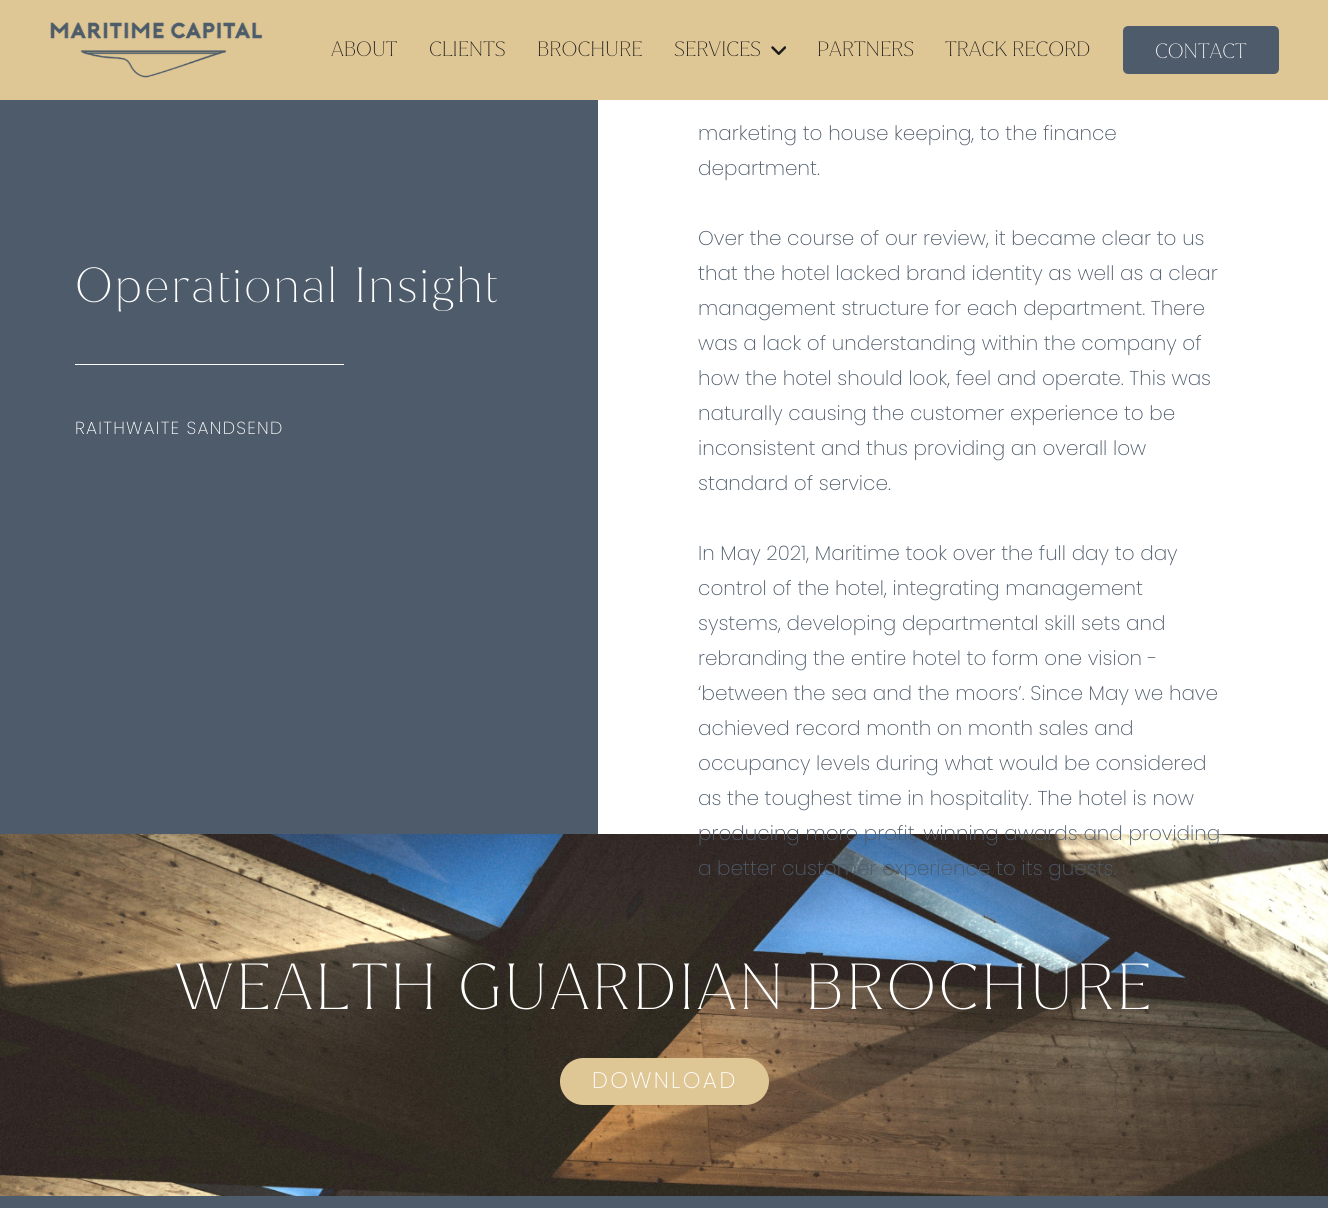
import math
import cairo

surface = cairo.ImageSurface(cairo.Format.RGB24, 1328, 1208)
ctx = cairo.Context(surface)
options = cairo.FontOptions()
options.set_hint_metrics(cairo.HintMetrics.OFF)
options.set_hint_style(cairo.HintStyle.NONE)
ctx.set_font_options(options)
ctx.set_miter_limit(4)


def ink(r, g, b):
    ctx.set_source_rgb(r / 255, g / 255, b / 255)


def write(x, y, s, family, size, color, bold=False, italic=False):
    ctx.select_font_face(family, cairo.FontSlant.ITALIC if italic else cairo.FontSlant.NORMAL, cairo.FontWeight.BOLD if bold else cairo.FontWeight.NORMAL)
    ctx.set_font_size(size)
    ink(*color)
    ctx.move_to(x, y)
    ctx.show_text(s)


def write_spaced(x, y, s, letter, word):
    ctx.move_to(x, y)
    for ch in s:
        ctx.show_text(ch)
        ctx.rel_move_to(letter + word * (ch == ' '), 0)


def block(x, y, w, h, *color):
    ink(*color)
    ctx.rectangle(x, y, w, h)
    ctx.fill()


def round_path(x, y, w, h, r):
    ctx.new_sub_path()
    for i, (u, v) in enumerate([(x + w - r, y + h - r), (x + r, y + h - r), (x + r, y + r), (x + w - r, y + r)]):
        ctx.arc(u, v, r, i * math.pi / 2, (i + 1) * math.pi / 2)
    ctx.close_path()


def paste(path, x, y, w, h):
    ctx.save()
    ctx.set_source_surface(cairo.ImageSurface.create_from_png(path), x, y)
    ctx.rectangle(x, y, w, h)
    ctx.fill()
    ctx.restore()


s1 = dict(family="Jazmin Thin", size=20, color=(27, 27, 27))
s2 = dict(family="Jazmin Thin", size=20, color=(255, 255, 255))
s3 = dict(family="Poppins ExtraLight", size=20, color=(77, 91, 106))

ink(255, 255, 255)
ctx.paint()
block(0, 0, 1328, 100, 223, 198, 149)
paste("pic1.png", 50, 22, 213, 56)
write(331, 56, "ABOUT", **s1)
write(429, 56, "CLIENTS", **s1)
write(537, 56, "BROCHURE", **s1)
write(674, 56, "SERVICES", **s1)
paste("pic2.png", 771, 46, 15, 9)
write(817, 56, "PARTNERS", **s1)
write(945, 56, "TRACK RECORD", **s1)
ink(77, 91, 106)
round_path(1124.5, 27.5, 153, 45, 3.5)
ctx.fill_preserve()
ctx.set_line_width(3)
ctx.stroke()
write(1155, 58, "CONTACT", **s2)
block(0, 100, 598, 734, 77, 91, 106)
ctx.set_font_size(47.5)
ink(255, 255, 255)
write_spaced(75, 302, "Operational Insight", 2.4, 0)
block(75, 364, 269, 1, 255, 255, 255)
ctx.select_font_face("Poppins ExtraLight")
ctx.set_font_size(17.5)
write_spaced(75, 434, "RAITHWAITE SANDSEND", 1.25, 0)
write(698, 140, "marketing to house keeping, to the finance", **s3)
write(698, 175, "department.", **s3)
write(698, 245, "Over the course of our review, it became clear to us", **s3)
write(698, 280, "that the hotel lacked brand identity as well as a clear", **s3)
write(698, 315, "management structure for each department. There", **s3)
write(698, 350, "was a lack of understanding within the company of", **s3)
write(698, 385, "how the hotel should look, feel and operate. This was", **s3)
write(698, 420, "naturally causing the customer experience to be", **s3)
write(698, 455, "inconsistent and thus providing an overall low", **s3)
write(698, 490, "standard of service.", **s3)
write(698, 560, "In May 2021, Maritime took over the full day to day", **s3)
write(698, 595, "control of the hotel, integrating management", **s3)
write(698, 630, "systems, developing departmental skill sets and", **s3)
write(698, 665, "rebranding the entire hotel to form one vision -", **s3)
write(698, 700, "‘between the sea and the moors’. Since May we have", **s3)
write(698, 735, "achieved record month on month sales and", **s3)
write(698, 770, "occupancy levels during what would be considered", **s3)
write(698, 805, "as the toughest time in hospitality. The hotel is now", **s3)
paste("pic3.png", 0, 834, 1328, 362)
write(698, 840, "producing more profit, winning awards and providing", **s3)
write(698, 875, "a better customer experience to its guests.", **s3)
ctx.select_font_face("Jazmin Thin")
ctx.set_font_size(62.5)
ink(255, 255, 255)
write_spaced(175, 1009, "WEALTH GUARDIAN BROCHURE", 2.4, 0)
ink(223, 198, 149)
round_path(560, 1058, 209, 47, 23.5)
ctx.fill()
ctx.select_font_face("Poppins ExtraLight")
ctx.set_font_size(22.5)
ink(255, 255, 255)
write_spaced(592, 1088, "DOWNLOAD", 2.4, 0)
block(0, 1196, 1328, 12, 77, 91, 106)
surface.write_to_png("screenshot.png")
